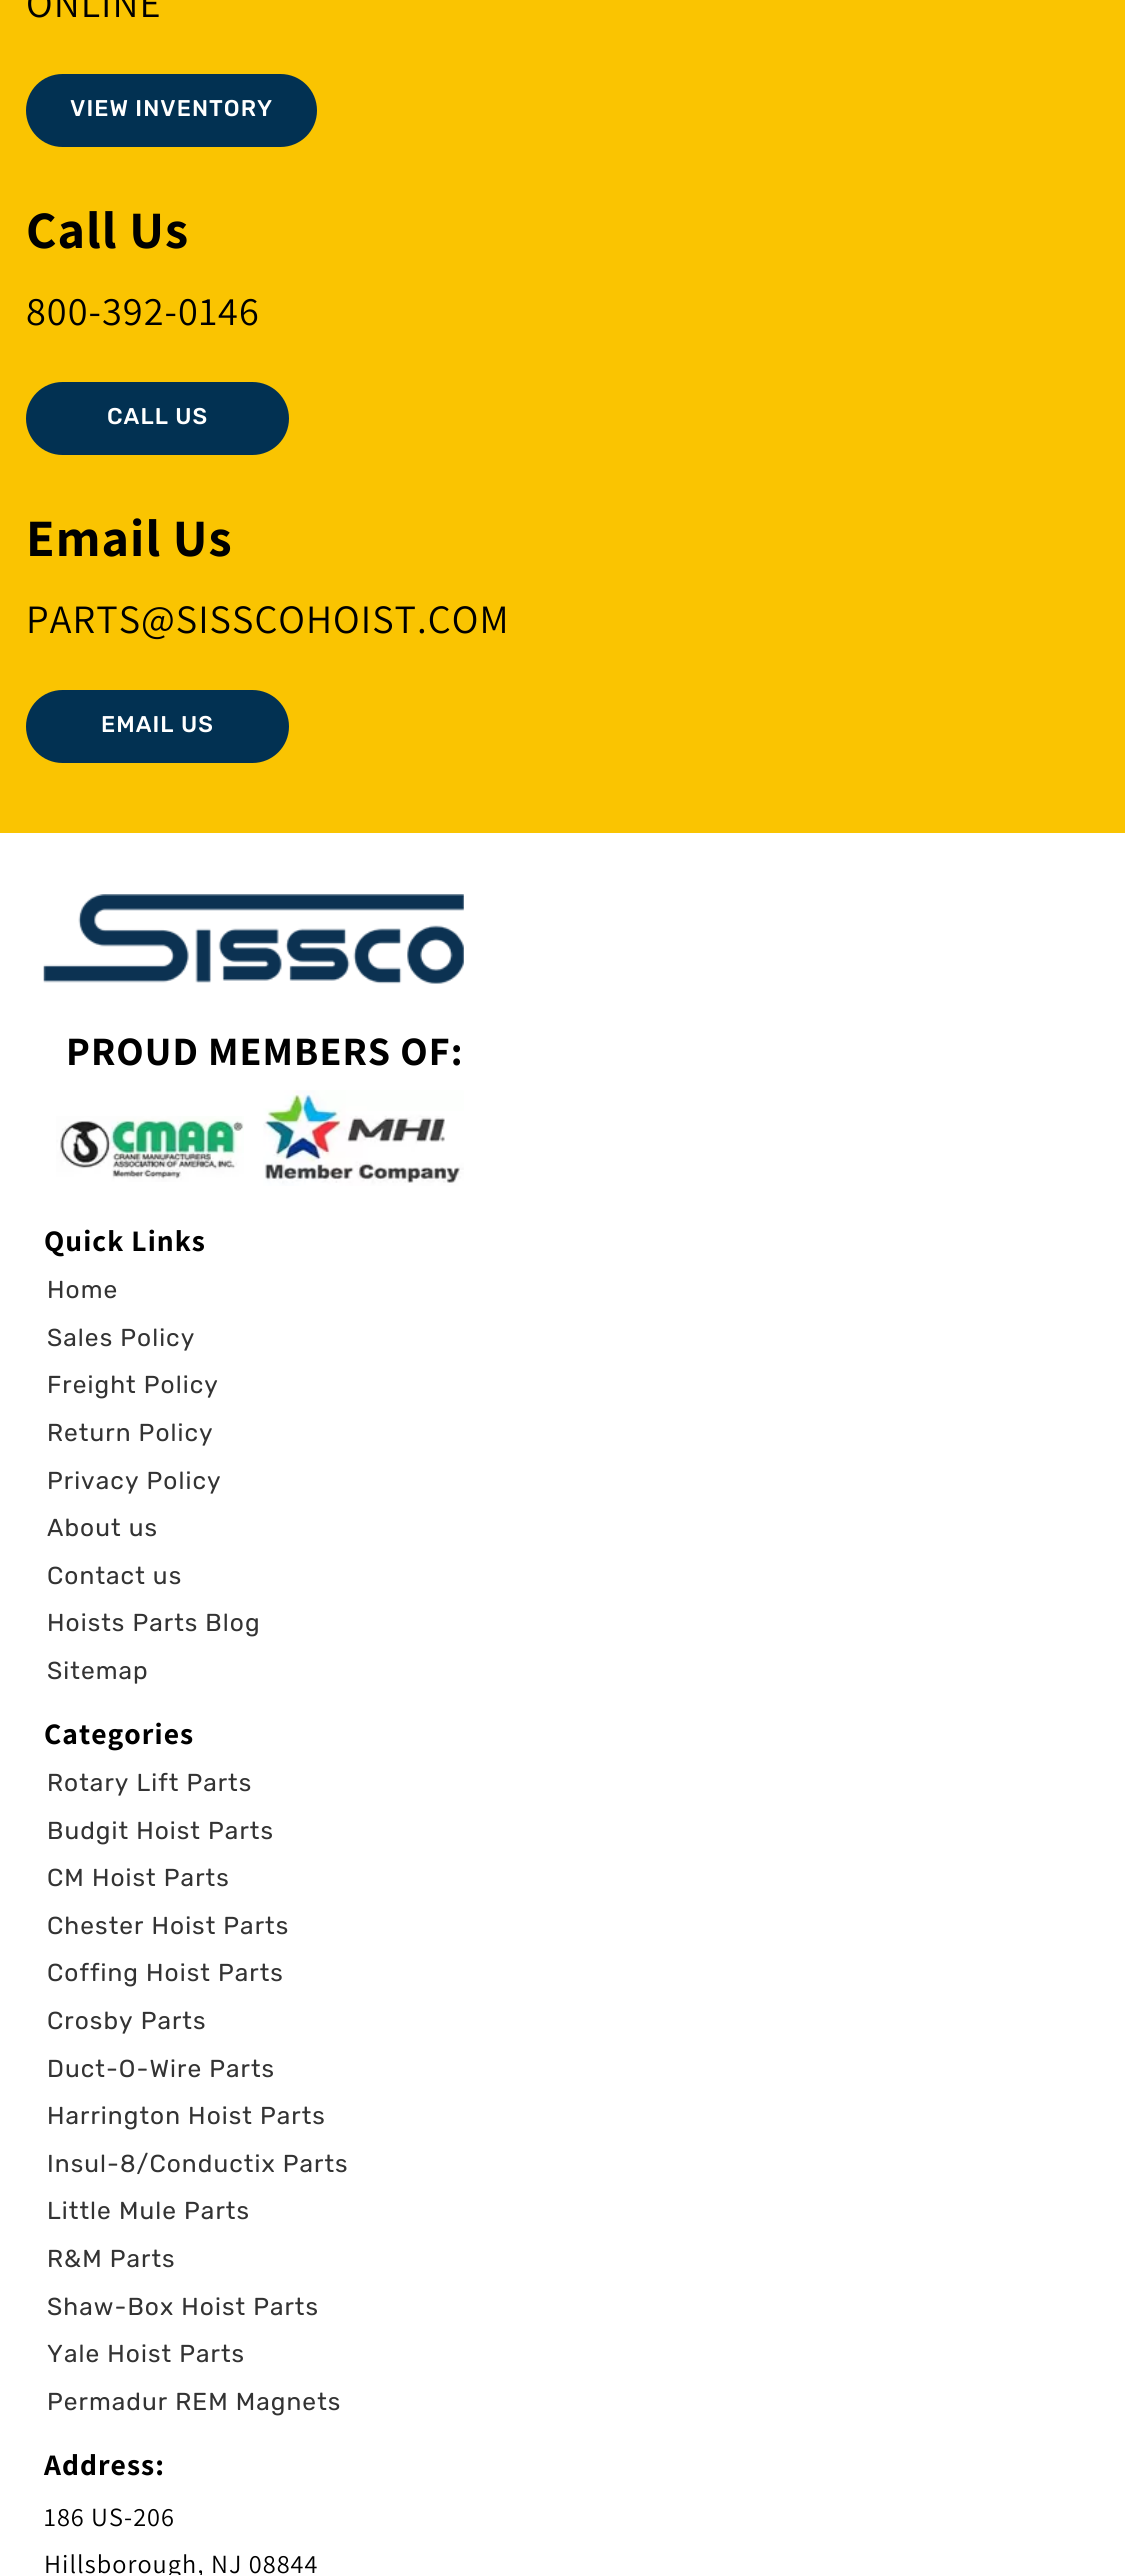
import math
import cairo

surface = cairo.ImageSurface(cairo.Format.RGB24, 1125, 2575)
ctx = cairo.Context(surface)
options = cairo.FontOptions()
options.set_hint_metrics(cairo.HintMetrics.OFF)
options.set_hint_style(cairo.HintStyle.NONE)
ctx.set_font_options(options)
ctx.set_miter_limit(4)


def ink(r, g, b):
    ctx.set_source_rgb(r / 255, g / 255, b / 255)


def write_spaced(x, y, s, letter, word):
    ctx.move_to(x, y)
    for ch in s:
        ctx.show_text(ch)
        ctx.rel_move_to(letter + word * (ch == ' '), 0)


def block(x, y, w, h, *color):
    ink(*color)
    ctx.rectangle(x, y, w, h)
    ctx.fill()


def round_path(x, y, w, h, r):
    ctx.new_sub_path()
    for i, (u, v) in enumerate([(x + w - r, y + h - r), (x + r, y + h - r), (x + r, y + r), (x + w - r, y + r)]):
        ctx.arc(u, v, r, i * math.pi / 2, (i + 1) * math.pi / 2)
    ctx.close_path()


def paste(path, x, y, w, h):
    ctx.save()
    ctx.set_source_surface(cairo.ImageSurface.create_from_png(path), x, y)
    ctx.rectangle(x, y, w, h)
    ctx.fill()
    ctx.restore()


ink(250, 196, 1)
ctx.paint()
ctx.select_font_face("Assistant")
ctx.set_font_size(40.25)
ink(0, 0, 0)
write_spaced(26, 17, "ONLINE", 1.05, 0)
ink(2, 49, 82)
round_path(26, 74, 291, 73, 36.5)
ctx.fill()
ctx.select_font_face("Rubik Medium")
ctx.set_font_size(22.75)
ink(255, 255, 255)
write_spaced(70, 116, "VIEW INVENTORY", 1.05, 0)
ctx.select_font_face("Assistant", cairo.FontSlant.NORMAL, cairo.FontWeight.BOLD)
ctx.set_font_size(52.5)
ink(0, 0, 0)
write_spaced(26, 248, "Call Us", 1.05, 0)
ctx.select_font_face("Assistant")
ctx.set_font_size(40.25)
write_spaced(26, 325, "800-392-0146", 1.05, 0)
ink(2, 49, 82)
round_path(26, 382, 263, 73, 36.5)
ctx.fill()
ctx.select_font_face("Rubik Medium")
ctx.set_font_size(22.75)
ink(255, 255, 255)
write_spaced(107, 424, "CALL US", 1.05, 0)
ctx.select_font_face("Assistant", cairo.FontSlant.NORMAL, cairo.FontWeight.BOLD)
ctx.set_font_size(52.5)
ink(0, 0, 0)
write_spaced(26, 556, "Email Us", 1.05, 0)
ctx.select_font_face("Assistant")
ctx.set_font_size(40.25)
write_spaced(26, 633, "PARTS@SISSCOHOIST.COM", 1.05, 0)
ink(2, 49, 82)
round_path(26, 690, 263, 73, 36.5)
ctx.fill()
ctx.select_font_face("Rubik Medium")
ctx.set_font_size(22.75)
ink(255, 255, 255)
write_spaced(101, 732, "EMAIL US", 1.05, 0)
block(0, 833, 1125, 1742, 255, 255, 255)
paste("pic1.png", 43, 894, 421, 90)
ctx.select_font_face("Assistant", cairo.FontSlant.NORMAL, cairo.FontWeight.BOLD)
ctx.set_font_size(40.25)
ink(0, 0, 0)
write_spaced(66, 1065, "PROUD MEMBERS OF:", 1.05, 0)
paste("pic2.png", 56, 1116, 188, 66)
paste("pic3.png", 263, 1090, 201, 96)
ctx.set_font_size(29.75)
write_spaced(44, 1251, "Quick Links", 1.05, 0)
ctx.select_font_face("Rubik")
ctx.set_font_size(24.5)
ink(51, 51, 51)
write_spaced(47, 1298, "Home", 1.05, 0)
write_spaced(47, 1346, "Sales Policy", 1.05, 0)
write_spaced(47, 1393, "Freight Policy", 1.05, 0)
write_spaced(47, 1441, "Return Policy", 1.05, 0)
write_spaced(47, 1489, "Privacy Policy", 1.05, 0)
write_spaced(47, 1536, "About us", 1.05, 0)
write_spaced(47, 1584, "Contact us", 1.05, 0)
write_spaced(47, 1631, "Hoists Parts Blog", 1.05, 0)
write_spaced(47, 1679, "Sitemap", 1.05, 0)
ctx.select_font_face("Assistant", cairo.FontSlant.NORMAL, cairo.FontWeight.BOLD)
ctx.set_font_size(29.75)
ink(0, 0, 0)
write_spaced(44, 1744, "Categories", 1.05, 0)
ctx.select_font_face("Rubik")
ctx.set_font_size(24.5)
ink(51, 51, 51)
write_spaced(47, 1791, "Rotary Lift Parts", 1.05, 0)
write_spaced(47, 1839, "Budgit Hoist Parts", 1.05, 0)
write_spaced(47, 1886, "CM Hoist Parts", 1.05, 0)
write_spaced(47, 1934, "Chester Hoist Parts", 1.05, 0)
write_spaced(47, 1981, "Coffing Hoist Parts", 1.05, 0)
write_spaced(47, 2029, "Crosby Parts", 1.05, 0)
write_spaced(47, 2077, "Duct-O-Wire Parts", 1.05, 0)
write_spaced(47, 2124, "Harrington Hoist Parts", 1.05, 0)
write_spaced(47, 2172, "Insul-8/Conductix Parts", 1.05, 0)
write_spaced(47, 2219, "Little Mule Parts", 1.05, 0)
write_spaced(47, 2267, "R&M Parts", 1.05, 0)
write_spaced(47, 2315, "Shaw-Box Hoist Parts", 1.05, 0)
write_spaced(47, 2362, "Yale Hoist Parts", 1.05, 0)
write_spaced(47, 2410, "Permadur REM Magnets", 1.05, 0)
ctx.select_font_face("Assistant", cairo.FontSlant.NORMAL, cairo.FontWeight.BOLD)
ctx.set_font_size(29.75)
ink(0, 0, 0)
write_spaced(44, 2475, "Address:", 1.05, 0)
ctx.select_font_face("Assistant")
ctx.set_font_size(26.25)
write_spaced(44, 2526, "186 US-206", 1.05, 0)
write_spaced(44, 2573, "Hillsborough, NJ 08844", 1.05, 0)
surface.write_to_png("screenshot.png")
